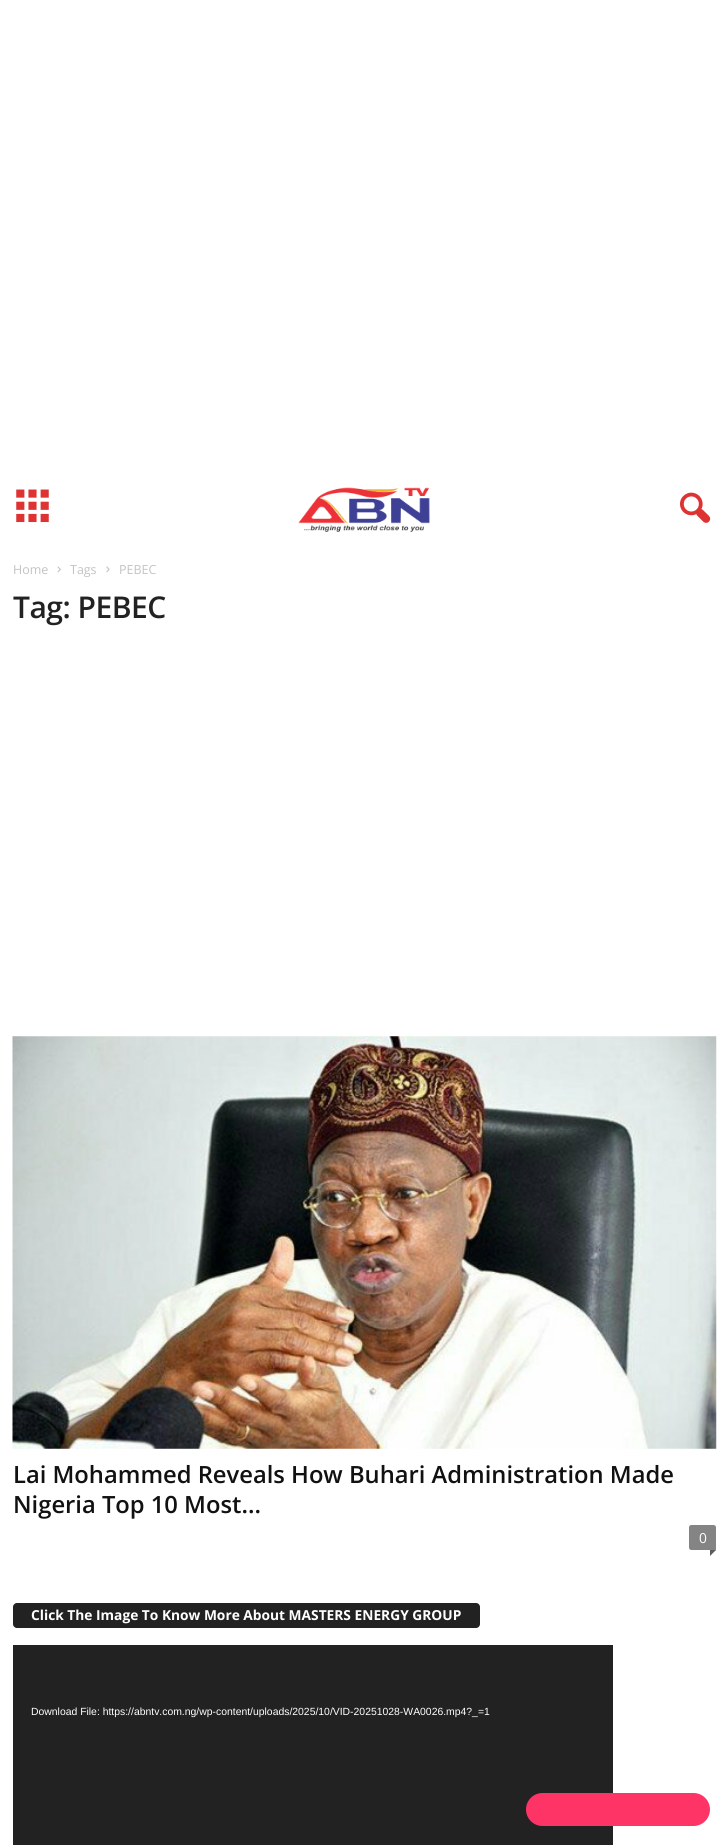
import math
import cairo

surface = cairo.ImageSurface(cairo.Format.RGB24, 728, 1845)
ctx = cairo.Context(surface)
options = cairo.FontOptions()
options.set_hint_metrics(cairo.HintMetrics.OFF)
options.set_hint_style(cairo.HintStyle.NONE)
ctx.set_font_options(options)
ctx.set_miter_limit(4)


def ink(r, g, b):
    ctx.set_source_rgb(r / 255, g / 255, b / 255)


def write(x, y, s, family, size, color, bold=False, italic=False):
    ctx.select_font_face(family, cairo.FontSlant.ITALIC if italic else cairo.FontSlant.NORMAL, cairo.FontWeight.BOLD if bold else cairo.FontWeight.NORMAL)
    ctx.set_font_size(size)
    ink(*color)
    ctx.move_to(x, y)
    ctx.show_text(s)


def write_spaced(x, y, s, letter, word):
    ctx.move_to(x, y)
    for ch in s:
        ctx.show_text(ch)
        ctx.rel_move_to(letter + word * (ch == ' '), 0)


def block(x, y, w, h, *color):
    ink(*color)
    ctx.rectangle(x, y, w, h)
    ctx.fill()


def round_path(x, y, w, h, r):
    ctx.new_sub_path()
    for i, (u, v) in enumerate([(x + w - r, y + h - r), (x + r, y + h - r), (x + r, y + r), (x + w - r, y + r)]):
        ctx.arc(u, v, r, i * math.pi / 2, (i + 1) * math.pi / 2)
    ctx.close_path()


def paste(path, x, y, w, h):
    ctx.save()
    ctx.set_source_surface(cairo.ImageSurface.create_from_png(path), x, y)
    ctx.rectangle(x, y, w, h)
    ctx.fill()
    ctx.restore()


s1 = dict(family="Open Sans", size=12.5, color=(195, 195, 195))
s2 = dict(family="Open Sans SemiBold", size=23.75, color=(17, 17, 17))
s3 = dict(family="Open Sans", size=13.75, color=(255, 255, 255))
s4 = dict(family="Open Sans", size=13.75, color=(255, 255, 255), bold=True)
s5 = dict(family="Liberation Sans", size=10.4, color=(255, 255, 255))

ink(255, 255, 255)
ctx.paint()
paste("pic1.png", 16, 489, 33, 34)
paste("pic2.png", 298, 487, 132, 45)
paste("pic3.png", 680, 492, 31, 31)
write(13, 574, "Home", **s1)
paste("pic4.png", 57, 566, 4, 7)
write(70, 574, "Tags", **s1)
paste("pic5.png", 106, 566, 4, 7)
write(119, 574, "PEBEC", **s1)
ctx.select_font_face("Open Sans SemiBold")
ctx.set_font_size(30)
ink(34, 34, 34)
write_spaced(13, 618, "Tag: PEBEC", -0.5, 0)
paste("pic6.png", 12, 1036, 705, 413)
write(13, 1483, "Lai Mohammed Reveals How Buhari Administration Made", **s2)
write(13, 1513, "Nigeria Top 10 Most...", **s2)
ink(132, 132, 132)
ctx.new_path()
ctx.move_to(691.5, 1525)
ctx.line_to(713.5, 1525)
ctx.curve_to(715, 1525, 716, 1526, 716, 1527.5)
ctx.line_to(716, 1550)
ctx.line_to(691.5, 1550)
ctx.curve_to(690, 1550, 689, 1549, 689, 1547.5)
ctx.line_to(689, 1527.5)
ctx.curve_to(689, 1526, 690, 1525, 691.5, 1525)
ctx.close_path()
ctx.fill()
write(699, 1543, "0", **s3)
ink(91, 91, 91)
ctx.new_path()
ctx.move_to(710, 1550)
ctx.line_to(716, 1550)
ctx.line_to(710, 1556)
ctx.close_path()
ctx.fill()
ink(34, 34, 34)
round_path(13, 1603, 467, 25, 4)
ctx.fill()
write(31, 1620, "Click The Image To Know More About MASTERS ENERGY GROUP", **s4)
block(13, 1645, 600, 200, 34, 34, 34)
write(31, 1715, "Download File: https://abntv.com.ng/wp-content/uploads/2025/10/VID-20251028-WA0026.mp4?_=1", **s5)
ink(255, 52, 102)
round_path(526, 1793, 184, 33, 16.5)
ctx.fill()
surface.write_to_png("screenshot.png")
